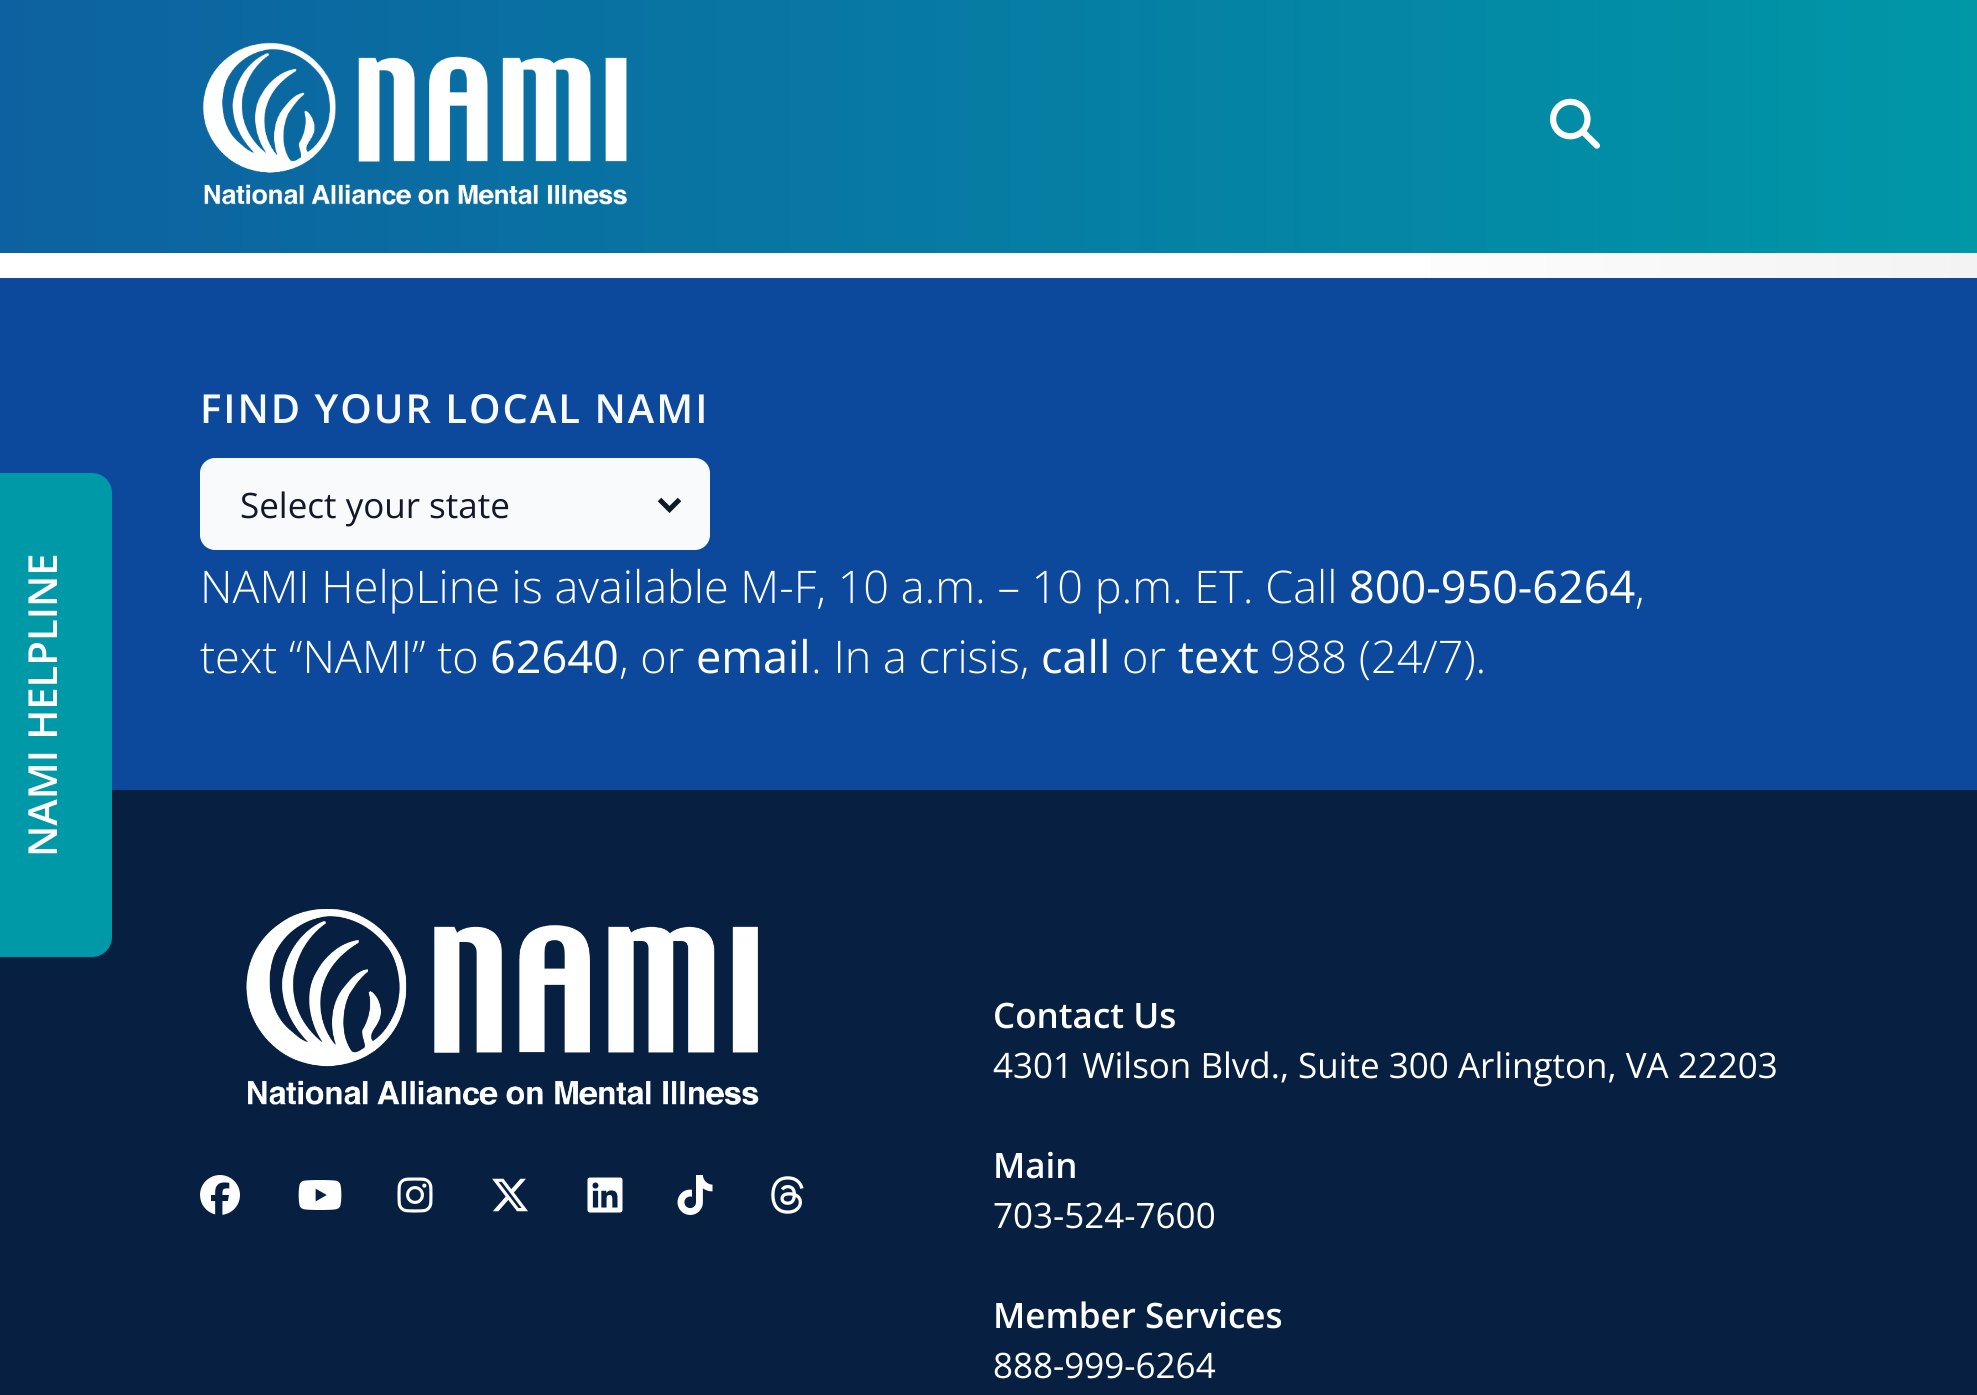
import math
import cairo

surface = cairo.ImageSurface(cairo.Format.RGB24, 1977, 1395)
ctx = cairo.Context(surface)
options = cairo.FontOptions()
options.set_hint_metrics(cairo.HintMetrics.OFF)
options.set_hint_style(cairo.HintStyle.NONE)
ctx.set_font_options(options)
ctx.set_miter_limit(4)


def ink(r, g, b):
    ctx.set_source_rgb(r / 255, g / 255, b / 255)


def write(x, y, s, family, size, color, bold=False, italic=False):
    ctx.select_font_face(family, cairo.FontSlant.ITALIC if italic else cairo.FontSlant.NORMAL, cairo.FontWeight.BOLD if bold else cairo.FontWeight.NORMAL)
    ctx.set_font_size(size)
    ink(*color)
    ctx.move_to(x, y)
    ctx.show_text(s)


def write_spaced(x, y, s, letter, word):
    ctx.move_to(x, y)
    for ch in s:
        ctx.show_text(ch)
        ctx.rel_move_to(letter + word * (ch == ' '), 0)


def block(x, y, w, h, *color):
    ink(*color)
    ctx.rectangle(x, y, w, h)
    ctx.fill()


def round_path(x, y, w, h, r):
    ctx.new_sub_path()
    for i, (u, v) in enumerate([(x + w - r, y + h - r), (x + r, y + h - r), (x + r, y + r), (x + w - r, y + r)]):
        ctx.arc(u, v, r, i * math.pi / 2, (i + 1) * math.pi / 2)
    ctx.close_path()


def paste(path, x, y, w, h):
    ctx.save()
    ctx.set_source_surface(cairo.ImageSurface.create_from_png(path), x, y)
    ctx.rectangle(x, y, w, h)
    ctx.fill()
    ctx.restore()


s1 = dict(family="Open Sans SemiBold", size=40, color=(255, 255, 255))
s2 = dict(family="Open Sans", size=35, color=(17, 24, 39))
s3 = dict(family="Open Sans Light", size=45, color=(255, 255, 255))
s4 = dict(family="Open Sans", size=45, color=(255, 255, 255))
s5 = dict(family="Open Sans SemiBold", size=35, color=(255, 255, 255))
s6 = dict(family="Open Sans", size=35, color=(255, 255, 255))

ink(255, 255, 255)
ctx.paint()
gradient = cairo.LinearGradient(0, -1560, 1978, -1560)
gradient.add_color_stop_rgba(0.65, 1, 1, 1, 1)
gradient.add_color_stop_rgba(1, 0.953, 0.953, 0.953, 1)
ctx.set_source(gradient)
ctx.rectangle(1430, 253, 547, 25)
ctx.fill()
gradient = cairo.LinearGradient(0, 126, 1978, 126)
gradient.add_color_stop_rgba(0, 0.051, 0.38, 0.627, 1)
gradient.add_color_stop_rgba(1, 0, 0.592, 0.655, 1)
ctx.set_source(gradient)
ctx.rectangle(0, 0, 1977, 253)
ctx.fill()
paste("pic1.png", 202, 42, 425, 163)
paste("pic2.png", 1550, 98, 50, 51)
block(0, 278, 1977, 512, 12, 73, 156)
block(0, 790, 1977, 605, 7, 32, 66)
ink(0, 153, 168)
ctx.new_path()
ctx.move_to(-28, 957)
ctx.line_to(-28, 473)
ctx.line_to(92, 473)
ctx.curve_to(103, 473, 112, 482, 112, 493)
ctx.line_to(112, 937)
ctx.curve_to(112, 948, 103, 957, 92, 957)
ctx.close_path()
ctx.fill()
ctx.save()
ctx.translate(57, 857)
ctx.rotate(-90 * math.pi / 180)
write(0, 0, "NAMI HELPLINE", **s1)
ctx.restore()
ctx.select_font_face("Open Sans SemiBold")
ctx.set_font_size(40)
ink(249, 250, 251)
write_spaced(200, 423, "FIND YOUR LOCAL NAMI", 2, 0)
round_path(200, 458, 510, 92, 15)
ctx.fill()
ctx.new_path()
ctx.move_to(659.5, 499.5)
ctx.line_to(669.5, 509.5)
ctx.line_to(679.5, 499.5)
ink(17, 24, 39)
ctx.set_line_width(5)
ctx.stroke()
write(240, 518, "Select your state", **s2)
write(200, 603, "NAMI HelpLine is available M-F, 10 a.m. – 10 p.m. ET. Call", **s3)
write(1349, 603, "800-950-6264", **s4)
write(1635, 603, ",", **s3)
write(200, 673, "text “NAMI” to", **s3)
write(490, 673, "62640", **s4)
write(619, 673, ", or", **s3)
write(696, 673, "email", **s4)
write(811, 673, ". In a crisis,", **s3)
write(1041, 673, "call", **s4)
write(1122, 673, "or", **s3)
write(1178, 673, "text", **s4)
write(1270, 673, "988 (24/7).", **s3)
paste("pic3.png", 246, 908, 513, 198)
paste("pic4.png", 200, 1175, 40, 40)
paste("pic5.png", 298, 1180, 44, 30)
paste("pic6.png", 397, 1177, 36, 36)
paste("pic7.png", 492, 1178, 36, 34)
paste("pic8.png", 587, 1177, 36, 36)
paste("pic9.png", 677, 1175, 36, 40)
paste("pic10.png", 771, 1176, 33, 38)
write(993, 1028, "Contact Us", **s5)
write(993, 1078, "4301 Wilson Blvd., Suite 300 Arlington, VA 22203", **s6)
write(993, 1178, "Main", **s5)
write(993, 1228, "703-524-7600", **s6)
write(993, 1328, "Member Services", **s5)
write(993, 1378, "888-999-6264", **s6)
surface.write_to_png("screenshot.png")
